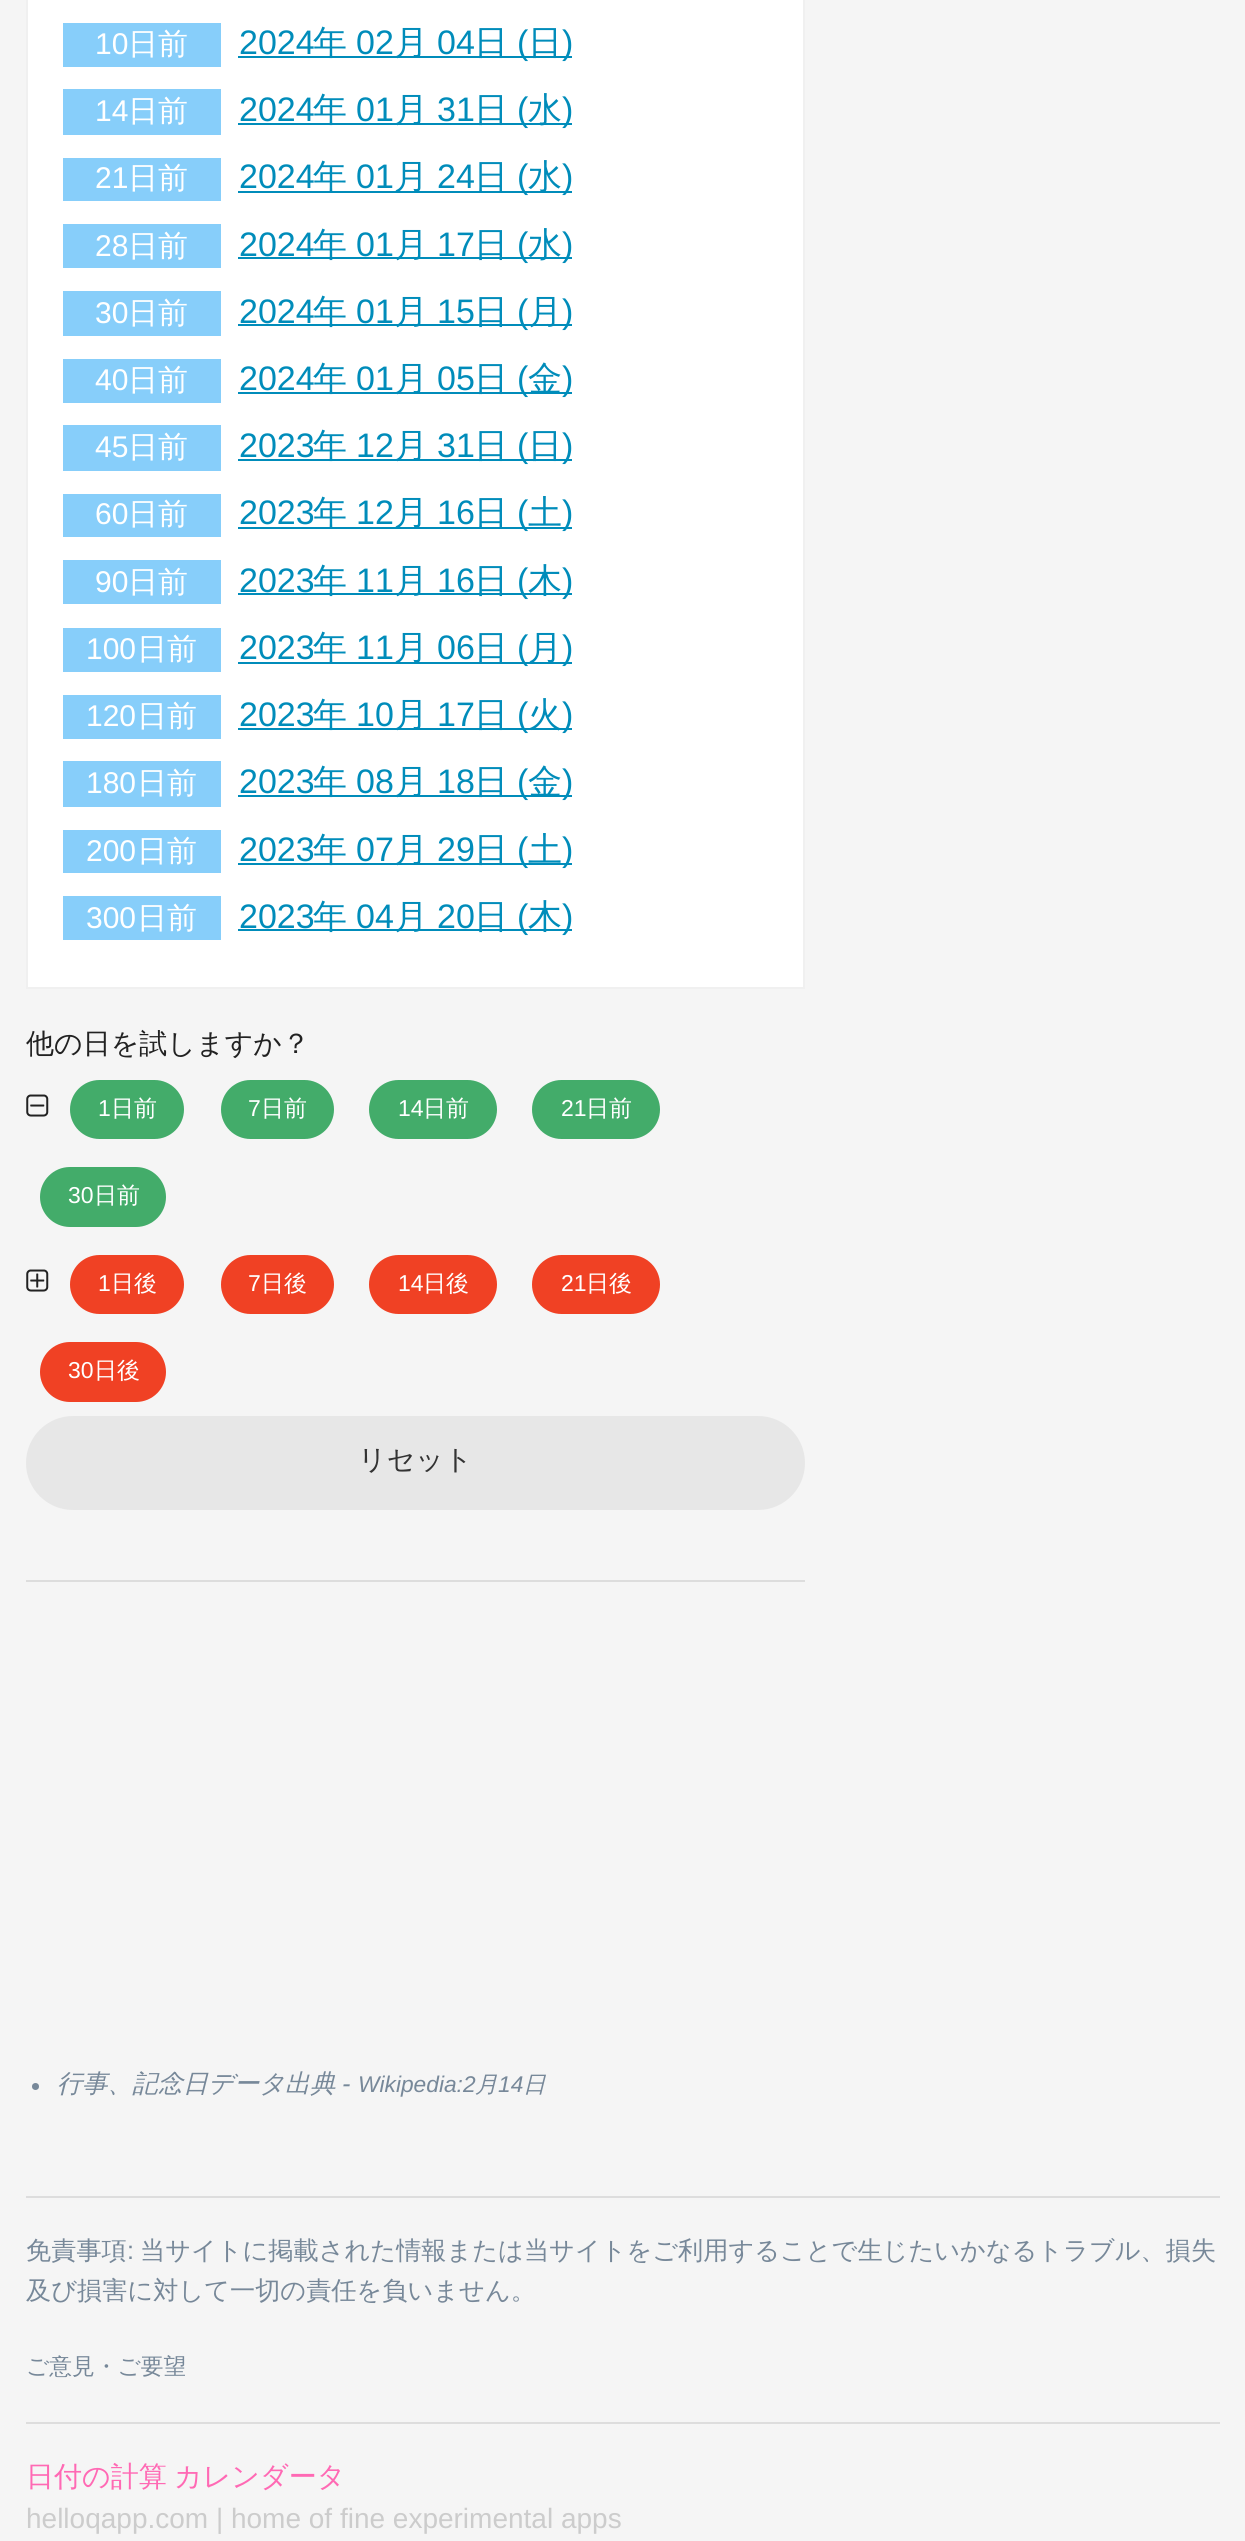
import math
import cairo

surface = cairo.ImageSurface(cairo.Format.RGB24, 1245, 2541)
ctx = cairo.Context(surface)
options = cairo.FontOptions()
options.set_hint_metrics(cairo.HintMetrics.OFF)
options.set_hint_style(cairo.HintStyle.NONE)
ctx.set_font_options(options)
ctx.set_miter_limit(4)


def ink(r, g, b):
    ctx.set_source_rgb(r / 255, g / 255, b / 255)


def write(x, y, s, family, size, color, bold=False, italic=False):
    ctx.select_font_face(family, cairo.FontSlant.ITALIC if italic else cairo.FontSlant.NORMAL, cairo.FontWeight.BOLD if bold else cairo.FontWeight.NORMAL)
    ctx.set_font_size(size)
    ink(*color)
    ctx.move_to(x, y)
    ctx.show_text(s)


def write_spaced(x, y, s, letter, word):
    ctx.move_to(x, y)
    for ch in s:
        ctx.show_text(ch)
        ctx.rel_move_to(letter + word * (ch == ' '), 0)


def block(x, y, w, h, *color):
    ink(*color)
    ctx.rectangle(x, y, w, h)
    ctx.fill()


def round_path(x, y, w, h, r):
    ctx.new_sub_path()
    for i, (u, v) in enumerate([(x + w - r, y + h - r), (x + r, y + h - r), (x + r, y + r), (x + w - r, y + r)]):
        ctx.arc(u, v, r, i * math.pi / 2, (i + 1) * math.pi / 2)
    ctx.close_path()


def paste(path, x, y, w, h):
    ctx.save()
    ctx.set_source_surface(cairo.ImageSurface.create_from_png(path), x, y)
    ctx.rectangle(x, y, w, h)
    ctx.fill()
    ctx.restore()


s1 = dict(family="Liberation Sans", size=30, color=(255, 255, 255))
s2 = dict(family="WenQuanYi Zen Hei Medium", size=30, color=(255, 255, 255))
s3 = dict(family="Liberation Sans", size=34, color=(0, 140, 186))
s4 = dict(family="WenQuanYi Zen Hei Medium", size=34, color=(0, 140, 186))
s5 = dict(family="WenQuanYi Zen Hei Medium", size=28, color=(34, 34, 34))
s6 = dict(family="Liberation Sans", size=23, color=(255, 255, 255))
s7 = dict(family="WenQuanYi Zen Hei Medium", size=23, color=(255, 255, 255))
s8 = dict(family="WenQuanYi Zen Hei Medium", size=28, color=(51, 51, 51))
s9 = dict(family="WenQuanYi Zen Hei Medium", size=25.2, color=(119, 136, 153), italic=True)
s10 = dict(family="Liberation Sans", size=25.2, color=(119, 136, 153), italic=True)
s11 = dict(family="Liberation Sans", size=22.75, color=(119, 136, 153), italic=True)
s12 = dict(family="WenQuanYi Zen Hei Medium", size=22.75, color=(119, 136, 153), italic=True)
s13 = dict(family="WenQuanYi Zen Hei Medium", size=25.2, color=(119, 136, 153))
s14 = dict(family="Liberation Sans", size=25.2, color=(119, 136, 153))
s15 = dict(family="WenQuanYi Zen Hei Medium", size=22.75, color=(119, 136, 153))
s16 = dict(family="Liberation Sans", size=28, color=(204, 204, 204))

ink(245, 245, 245)
ctx.paint()
ink(255, 255, 255)
ctx.rectangle(27, -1, 777, 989)
ctx.fill_preserve()
ink(240, 240, 240)
ctx.stroke()
block(63, 23, 158, 44, 135, 206, 250)
write(95, 54, "10", **s1)
write(128, 54, "日前", **s2)
write(239, 54, "2024", **s3)
block(238, 56, 334, 2, 0, 140, 186)
write(313, 54, "年", **s4)
write(356, 54, "02", **s3)
write(394, 54, "月", **s4)
write(437, 54, "04", **s3)
write(474, 54, "日", **s4)
write(517, 54, "(", **s3)
write(528, 54, "日", **s4)
write(562, 54, ")", **s3)
block(63, 89, 158, 46, 135, 206, 250)
write(95, 121, "14", **s1)
write(128, 121, "日前", **s2)
write(239, 121, "2024", **s3)
block(238, 123, 334, 2, 0, 140, 186)
write(313, 121, "年", **s4)
write(356, 121, "01", **s3)
write(394, 121, "月", **s4)
write(437, 121, "31", **s3)
write(474, 121, "日", **s4)
write(517, 121, "(", **s3)
write(528, 121, "水", **s4)
write(562, 121, ")", **s3)
block(63, 158, 158, 43, 135, 206, 250)
write(95, 188, "21", **s1)
write(128, 188, "日前", **s2)
write(239, 188, "2024", **s3)
block(238, 191, 334, 2, 0, 140, 186)
write(313, 188, "年", **s4)
write(356, 188, "01", **s3)
write(394, 188, "月", **s4)
write(437, 188, "24", **s3)
write(474, 188, "日", **s4)
write(517, 188, "(", **s3)
write(528, 188, "水", **s4)
write(562, 188, ")", **s3)
block(63, 224, 158, 44, 135, 206, 250)
write(95, 256, "28", **s1)
write(128, 256, "日前", **s2)
write(239, 256, "2024", **s3)
block(238, 257, 334, 2, 0, 140, 186)
write(313, 256, "年", **s4)
write(356, 256, "01", **s3)
write(394, 256, "月", **s4)
write(437, 256, "17", **s3)
write(474, 256, "日", **s4)
write(517, 256, "(", **s3)
write(528, 256, "水", **s4)
write(562, 256, ")", **s3)
block(63, 291, 158, 45, 135, 206, 250)
write(95, 323, "30", **s1)
write(128, 323, "日前", **s2)
write(239, 323, "2024", **s3)
block(238, 324, 334, 2, 0, 140, 186)
write(313, 323, "年", **s4)
write(356, 323, "01", **s3)
write(394, 323, "月", **s4)
write(437, 323, "15", **s3)
write(474, 323, "日", **s4)
write(517, 323, "(", **s3)
write(528, 323, "月", **s4)
write(562, 323, ")", **s3)
block(63, 359, 158, 44, 135, 206, 250)
write(95, 390, "40", **s1)
write(128, 390, "日前", **s2)
write(239, 390, "2024", **s3)
block(238, 392, 334, 2, 0, 140, 186)
write(313, 390, "年", **s4)
write(356, 390, "01", **s3)
write(394, 390, "月", **s4)
write(437, 390, "05", **s3)
write(474, 390, "日", **s4)
write(517, 390, "(", **s3)
write(528, 390, "金", **s4)
write(562, 390, ")", **s3)
block(63, 425, 158, 46, 135, 206, 250)
write(95, 457, "45", **s1)
write(128, 457, "日前", **s2)
write(239, 457, "2023", **s3)
block(238, 459, 334, 2, 0, 140, 186)
write(313, 457, "年", **s4)
write(356, 457, "12", **s3)
write(394, 457, "月", **s4)
write(437, 457, "31", **s3)
write(474, 457, "日", **s4)
write(517, 457, "(", **s3)
write(528, 457, "日", **s4)
write(562, 457, ")", **s3)
block(63, 494, 158, 43, 135, 206, 250)
write(95, 524, "60", **s1)
write(128, 524, "日前", **s2)
write(239, 524, "2023", **s3)
block(238, 527, 334, 2, 0, 140, 186)
write(313, 524, "年", **s4)
write(356, 524, "12", **s3)
write(394, 524, "月", **s4)
write(437, 524, "16", **s3)
write(474, 524, "日", **s4)
write(517, 524, "(", **s3)
write(528, 524, "土", **s4)
write(562, 524, ")", **s3)
block(63, 560, 158, 44, 135, 206, 250)
write(95, 592, "90", **s1)
write(128, 592, "日前", **s2)
write(239, 592, "2023", **s3)
block(238, 593, 334, 2, 0, 140, 186)
write(313, 592, "年", **s4)
write(356, 592, "11", **s3)
write(394, 592, "月", **s4)
write(437, 592, "16", **s3)
write(474, 592, "日", **s4)
write(517, 592, "(", **s3)
write(528, 592, "木", **s4)
write(562, 592, ")", **s3)
block(63, 628, 158, 44, 135, 206, 250)
write(86, 659, "100", **s1)
write(137, 659, "日前", **s2)
write(239, 659, "2023", **s3)
block(238, 662, 334, 2, 0, 140, 186)
write(313, 659, "年", **s4)
write(356, 659, "11", **s3)
write(394, 659, "月", **s4)
write(437, 659, "06", **s3)
write(474, 659, "日", **s4)
write(517, 659, "(", **s3)
write(528, 659, "月", **s4)
write(562, 659, ")", **s3)
block(63, 695, 158, 44, 135, 206, 250)
write(86, 726, "120", **s1)
write(137, 726, "日前", **s2)
write(239, 726, "2023", **s3)
block(238, 728, 334, 2, 0, 140, 186)
write(313, 726, "年", **s4)
write(356, 726, "10", **s3)
write(394, 726, "月", **s4)
write(437, 726, "17", **s3)
write(474, 726, "日", **s4)
write(517, 726, "(", **s3)
write(528, 726, "火", **s4)
write(562, 726, ")", **s3)
block(63, 761, 158, 46, 135, 206, 250)
write(86, 793, "180", **s1)
write(137, 793, "日前", **s2)
write(239, 793, "2023", **s3)
block(238, 795, 334, 2, 0, 140, 186)
write(313, 793, "年", **s4)
write(356, 793, "08", **s3)
write(394, 793, "月", **s4)
write(437, 793, "18", **s3)
write(474, 793, "日", **s4)
write(517, 793, "(", **s3)
write(528, 793, "金", **s4)
write(562, 793, ")", **s3)
block(63, 830, 158, 43, 135, 206, 250)
write(86, 861, "200", **s1)
write(137, 861, "日前", **s2)
write(239, 861, "2023", **s3)
block(238, 863, 334, 2, 0, 140, 186)
write(313, 861, "年", **s4)
write(356, 861, "07", **s3)
write(394, 861, "月", **s4)
write(437, 861, "29", **s3)
write(474, 861, "日", **s4)
write(517, 861, "(", **s3)
write(528, 861, "土", **s4)
write(562, 861, ")", **s3)
block(63, 896, 158, 44, 135, 206, 250)
write(86, 928, "300", **s1)
write(137, 928, "日前", **s2)
write(239, 928, "2023", **s3)
block(238, 929, 334, 2, 0, 140, 186)
write(313, 928, "年", **s4)
write(356, 928, "04", **s3)
write(394, 928, "月", **s4)
write(437, 928, "20", **s3)
write(474, 928, "日", **s4)
write(517, 928, "(", **s3)
write(528, 928, "木", **s4)
write(562, 928, ")", **s3)
write(26, 1053, "他の日を試しますか？", **s5)
paste("pic1.png", 26, 1094, 23, 23)
ink(67, 172, 106)
round_path(70, 1080, 114, 59, 29.5)
ctx.fill()
write(98, 1116, "1", **s6)
write(111, 1116, "日前", **s7)
ink(67, 172, 106)
round_path(221, 1080, 113, 59, 29.5)
ctx.fill()
write(248, 1116, "7", **s6)
write(261, 1116, "日前", **s7)
ink(67, 172, 106)
round_path(369, 1080, 128, 59, 29.5)
ctx.fill()
write(398, 1116, "14", **s6)
write(423, 1116, "日前", **s7)
ink(67, 172, 106)
round_path(532, 1080, 128, 59, 29.5)
ctx.fill()
write(561, 1116, "21", **s6)
write(586, 1116, "日前", **s7)
ink(67, 172, 106)
round_path(40, 1167, 126, 60, 30)
ctx.fill()
write(68, 1203, "30", **s6)
write(94, 1203, "日前", **s7)
paste("pic2.png", 26, 1269, 23, 23)
ink(240, 65, 36)
round_path(70, 1255, 114, 59, 29.5)
ctx.fill()
write(98, 1291, "1", **s6)
write(111, 1291, "日後", **s7)
ink(240, 65, 36)
round_path(221, 1255, 113, 59, 29.5)
ctx.fill()
write(248, 1291, "7", **s6)
write(261, 1291, "日後", **s7)
ink(240, 65, 36)
round_path(369, 1255, 128, 59, 29.5)
ctx.fill()
write(398, 1291, "14", **s6)
write(423, 1291, "日後", **s7)
ink(240, 65, 36)
round_path(532, 1255, 128, 59, 29.5)
ctx.fill()
write(561, 1291, "21", **s6)
write(586, 1291, "日後", **s7)
ink(240, 65, 36)
round_path(40, 1342, 126, 60, 30)
ctx.fill()
write(68, 1378, "30", **s6)
write(94, 1378, "日後", **s7)
ink(231, 231, 231)
round_path(26, 1416, 779, 94, 47)
ctx.fill()
write(358, 1469, "リセット", **s8)
block(26, 1580, 779, 2, 221, 221, 221)
ink(119, 136, 153)
ctx.new_path()
ctx.arc(35.5, 2086.5, 3.5, 0, 2 * math.pi)
ctx.fill()
write(57, 2092, "行事、記念日データ出典", **s9)
write(342, 2092, "-", **s10)
write(358, 2092, "Wikipedia:2", **s11)
write(475, 2092, "月", **s12)
write(498, 2092, "14", **s11)
write(523, 2092, "日", **s12)
block(26, 2196, 1194, 2, 221, 221, 221)
write(26, 2259, "免責事項", **s13)
write(127, 2259, ":", **s14)
write(140, 2259, "当サイトに掲載された情報または当サイトをご利用することで生じたいかなるトラブル、損失", **s13)
write(26, 2299, "及び損害に対して一切の責任を負いません。", **s13)
write(26, 2374, "ご意見・ご要望", **s15)
block(26, 2422, 1194, 2, 221, 221, 221)
ctx.set_font_size(28)
ink(255, 105, 180)
write_spaced(26, 2486, "日付の計算 カレンダータ", 0, -1)
write(26, 2528, "helloqapp.com | home of fine experimental apps", **s16)
surface.write_to_png("screenshot.png")
